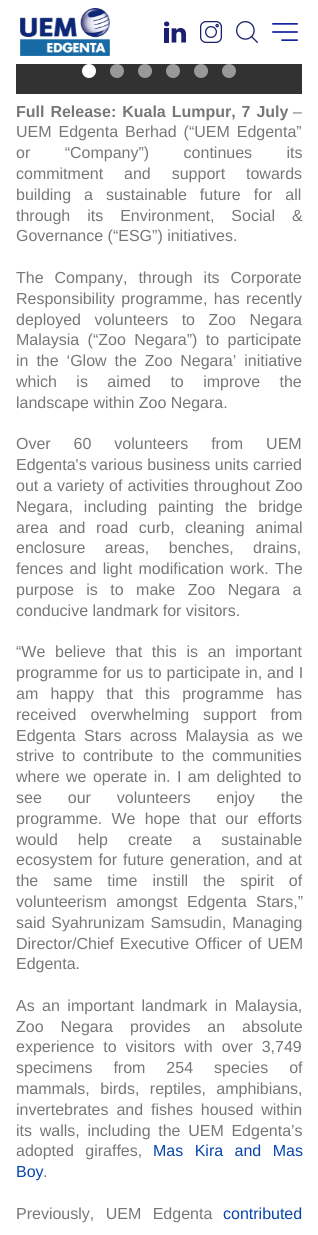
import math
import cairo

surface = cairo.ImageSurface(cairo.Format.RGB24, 318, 1235)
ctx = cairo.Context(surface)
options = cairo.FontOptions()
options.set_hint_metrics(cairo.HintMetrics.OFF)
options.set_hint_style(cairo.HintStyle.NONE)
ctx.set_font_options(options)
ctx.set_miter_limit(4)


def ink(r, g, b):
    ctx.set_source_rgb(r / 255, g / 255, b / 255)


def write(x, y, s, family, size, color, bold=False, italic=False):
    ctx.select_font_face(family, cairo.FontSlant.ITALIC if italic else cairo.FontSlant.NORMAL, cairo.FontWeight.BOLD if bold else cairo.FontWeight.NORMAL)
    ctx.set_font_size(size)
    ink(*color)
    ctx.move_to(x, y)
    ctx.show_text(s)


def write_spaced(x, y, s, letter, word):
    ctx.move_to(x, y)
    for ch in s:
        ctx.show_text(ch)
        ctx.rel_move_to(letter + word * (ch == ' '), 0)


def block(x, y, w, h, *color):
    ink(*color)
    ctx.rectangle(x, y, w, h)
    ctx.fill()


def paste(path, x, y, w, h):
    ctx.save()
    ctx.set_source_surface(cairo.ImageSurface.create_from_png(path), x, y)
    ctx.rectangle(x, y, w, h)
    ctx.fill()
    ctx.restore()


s1 = dict(family="Liberation Sans", size=16, color=(119, 119, 119))
s2 = dict(family="Liberation Sans", size=16, color=(6, 69, 173))

ink(255, 255, 255)
ctx.paint()
paste("pic1.png", 20, 8, 90, 48)
paste("pic2.png", 164, 21, 22, 22)
paste("pic3.png", 200, 21, 22, 22)
paste("pic4.png", 236, 21, 22, 22)
paste("pic5.png", 272, 23, 26, 18)
block(16, 64, 286, 30, 50, 50, 50)
ink(255, 255, 255)
ctx.arc(89, 71, 7, 0, 2 * math.pi)
ctx.fill()
ink(153, 153, 153)
ctx.arc(117, 71, 7, 0, 2 * math.pi)
ctx.fill()
ctx.arc(145, 71, 7, 0, 2 * math.pi)
ctx.fill()
ctx.arc(173, 71, 7, 0, 2 * math.pi)
ctx.fill()
ctx.arc(201, 71, 7, 0, 2 * math.pi)
ctx.fill()
ctx.arc(229, 71, 7, 0, 2 * math.pi)
ctx.fill()
ctx.select_font_face("Liberation Sans", cairo.FontSlant.NORMAL, cairo.FontWeight.BOLD)
ctx.set_font_size(16)
ink(119, 119, 119)
write_spaced(16, 117, "Full Release: Kuala Lumpur, 7 July", 0, 1.5)
write(293, 117, "–", **s1)
write_spaced(16, 137, "UEM Edgenta Berhad (“UEM Edgenta”", 0, 2.5)
write_spaced(16, 158, "or “Company”) continues its", 0, 30)
write_spaced(16, 179, "commitment and support towards", 0, 16.5)
write_spaced(16, 200, "building a sustainable future for all", 0, 8.5)
write_spaced(16, 221, "through its Environment, Social &", 0, 12.5)
write(16, 241, "Governance (“ESG”) initiatives.", **s1)
write_spaced(16, 283, "The Company, through its Corporate", 0, 6.5)
write_spaced(16, 304, "Responsibility programme, has recently", 0, 2)
write_spaced(16, 325, "deployed volunteers to Zoo Negara", 0, 9)
write_spaced(16, 345, "Malaysia (“Zoo Negara”) to participate", 0, 4)
write_spaced(16, 366, "in the ‘Glow the Zoo Negara’ initiative", 0, 3.5)
write_spaced(16, 387, "which is aimed to improve the", 0, 15)
write(16, 408, "landscape within Zoo Negara.", **s1)
write_spaced(16, 449, "Over 60 volunteers from UEM", 0, 18.5)
write(16, 470, "Edgenta's various business units carried", **s1)
write_spaced(16, 491, "out a variety of activities throughout Zoo", 0, 0.5)
write_spaced(16, 512, "Negara, including painting the bridge", 0, 6.5)
write_spaced(16, 533, "area and road curb, cleaning animal", 0, 6.25)
write_spaced(16, 553, "enclosure areas, benches, drains,", 0, 15)
write_spaced(16, 574, "fences and light modification work. The", 0, 2)
write_spaced(16, 595, "purpose is to make Zoo Negara a", 0, 8)
write(16, 616, "conducive landmark for visitors.", **s1)
write_spaced(16, 657, "“We believe that this is an important", 0, 5.25)
write_spaced(16, 678, "programme for us to participate in, and I", 0, 0.5)
write_spaced(16, 699, "am happy that this programme has", 0, 7.75)
write_spaced(16, 720, "received overwhelming support from", 0, 9.5)
write_spaced(16, 741, "Edgenta Stars across Malaysia as we", 0, 4)
write_spaced(16, 761, "strive to contribute to the communities", 0, 3.25)
write_spaced(16, 782, "where we operate in. I am delighted to", 0, 2)
write_spaced(16, 803, "see our volunteers enjoy the", 0, 21.5)
write_spaced(16, 824, "programme. We hope that our efforts", 0, 4.75)
write_spaced(16, 845, "would help create a sustainable", 0, 15.5)
write_spaced(16, 865, "ecosystem for future generation, and at", 0, 1.5)
write_spaced(16, 886, "the same time instill the spirit of", 0, 10.5)
write_spaced(16, 907, "volunteerism amongst Edgenta Stars,”", 0, 5)
write_spaced(16, 928, "said Syahrunizam Samsudin, Managing", 0, 1.5)
write_spaced(16, 949, "Director/Chief Executive Officer of UEM", 0, 1.5)
write(16, 969, "Edgenta.", **s1)
write_spaced(16, 1011, "As an important landmark in Malaysia,", 0, 3)
write_spaced(16, 1032, "Zoo Negara provides an absolute", 0, 12.5)
write_spaced(16, 1052, "experience to visitors with over 3,749", 0, 4.5)
write_spaced(16, 1073, "specimens from 254 species of", 0, 16.5)
write_spaced(16, 1094, "mammals, birds, reptiles, amphibians,", 0, 6)
write_spaced(16, 1115, "invertebrates and fishes housed within", 0, 3.5)
write_spaced(16, 1136, "its walls, including the UEM Edgenta’s", 0, 3.25)
write_spaced(16, 1156, "adopted giraffes,", 0, 7)
ink(6, 69, 173)
write_spaced(153, 1156, "Mas Kira and Mas", 0, 7)
write(16, 1177, "Boy", **s2)
write(43, 1177, ".", **s1)
write_spaced(16, 1219, "Previously, UEM Edgenta", 0, 7)
write(223, 1219, "contributed", **s2)
surface.write_to_png("screenshot.png")
